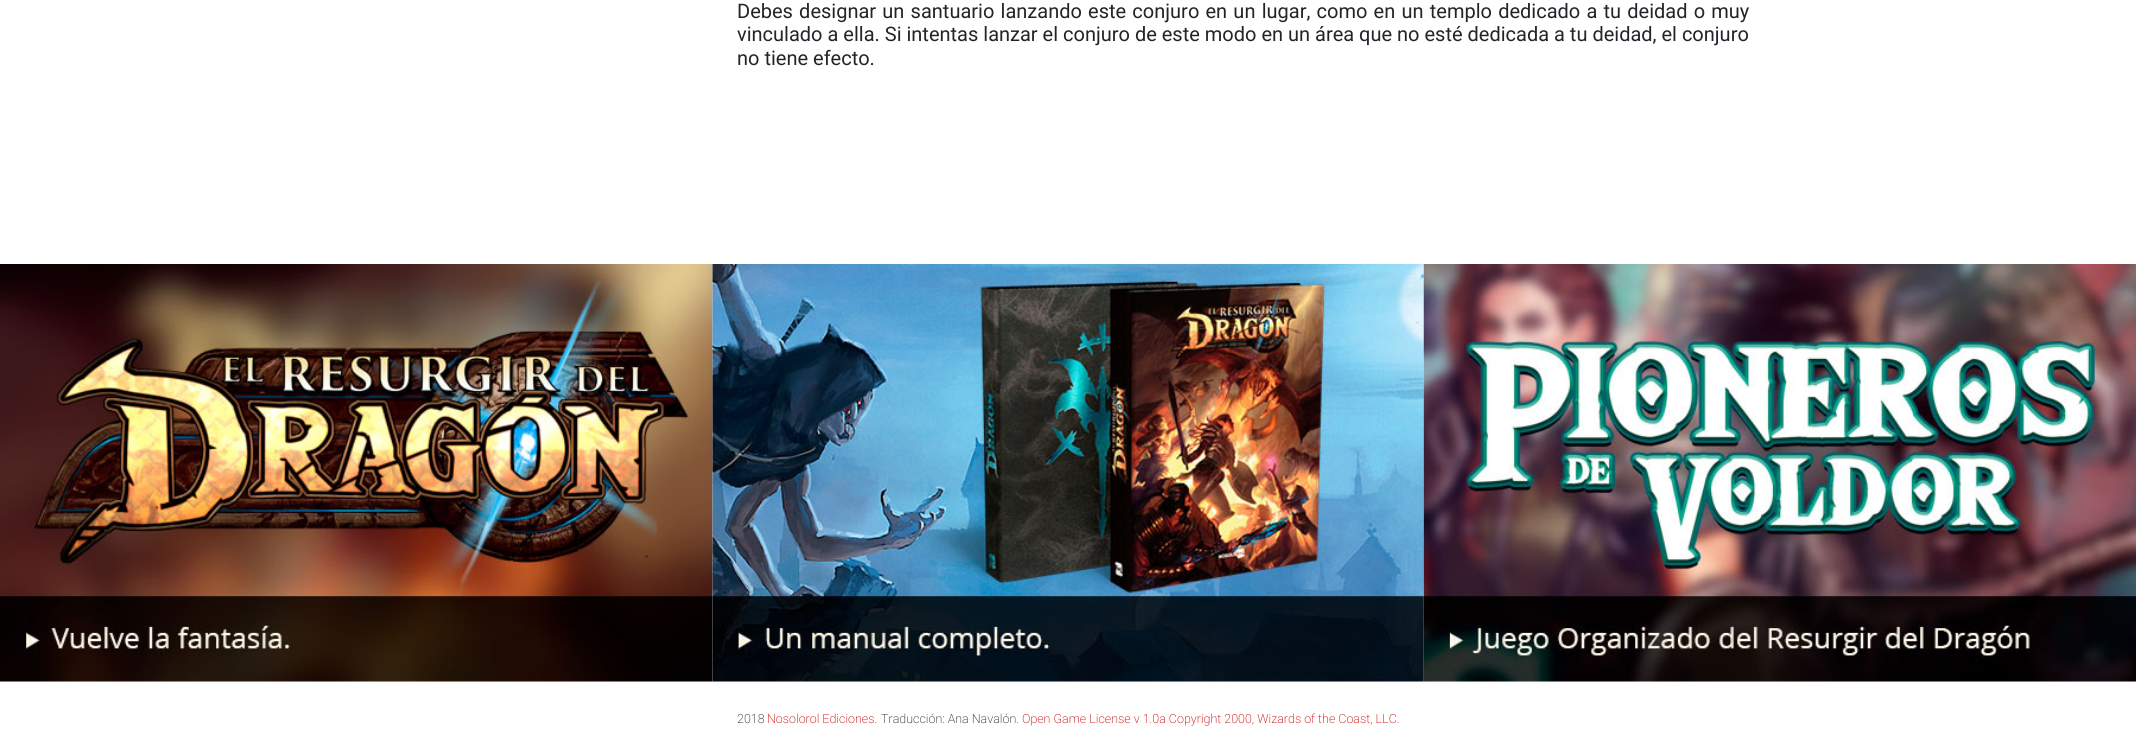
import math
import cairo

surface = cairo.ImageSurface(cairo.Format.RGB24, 2136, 745)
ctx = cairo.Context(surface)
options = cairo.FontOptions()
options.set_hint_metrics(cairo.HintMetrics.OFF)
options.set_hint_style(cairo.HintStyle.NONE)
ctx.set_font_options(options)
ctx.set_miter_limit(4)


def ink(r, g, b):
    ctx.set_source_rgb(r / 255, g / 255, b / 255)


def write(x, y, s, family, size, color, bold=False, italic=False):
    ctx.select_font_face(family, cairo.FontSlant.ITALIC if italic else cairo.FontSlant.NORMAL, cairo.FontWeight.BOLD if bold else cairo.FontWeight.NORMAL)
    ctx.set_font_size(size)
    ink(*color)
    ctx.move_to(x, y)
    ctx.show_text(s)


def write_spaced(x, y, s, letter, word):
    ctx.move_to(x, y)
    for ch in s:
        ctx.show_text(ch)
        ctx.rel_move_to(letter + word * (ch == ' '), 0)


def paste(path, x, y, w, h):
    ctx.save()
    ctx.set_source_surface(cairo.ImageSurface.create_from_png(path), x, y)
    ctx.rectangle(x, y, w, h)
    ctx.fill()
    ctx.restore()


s1 = dict(family="Roboto", size=20, color=(33, 37, 41))
s2 = dict(family="Roboto ExtraLight", size=12.5, color=(33, 37, 41))
s3 = dict(family="Roboto ExtraLight", size=12.5, color=(206, 0, 0))

ink(255, 255, 255)
ctx.paint()
ctx.select_font_face("Roboto")
ctx.set_font_size(20)
ink(33, 37, 41)
write_spaced(737, 18, "Debes designar un santuario lanzando este conjuro en un lugar, como en un templo dedicado a tu deidad o muy", 0, 1.25)
write(737, 41, "vinculado a ella. Si intentas lanzar el conjuro de este modo en un área que no esté dedicada a tu deidad, el conjuro", **s1)
write(737, 65, "no tiene efecto.", **s1)
paste("pic1.png", 0, 264, 713, 418)
paste("pic2.png", 712, 264, 712, 418)
paste("pic3.png", 1423, 264, 713, 418)
write(737, 723, "2018", **s2)
write(767, 723, "Nosolorol Ediciones.", **s3)
write(881, 723, "Traducción: Ana Navalón.", **s2)
write(1022, 723, "Open Game License v 1.0a Copyright 2000, Wizards of the Coast, LLC.", **s3)
surface.write_to_png("screenshot.png")
